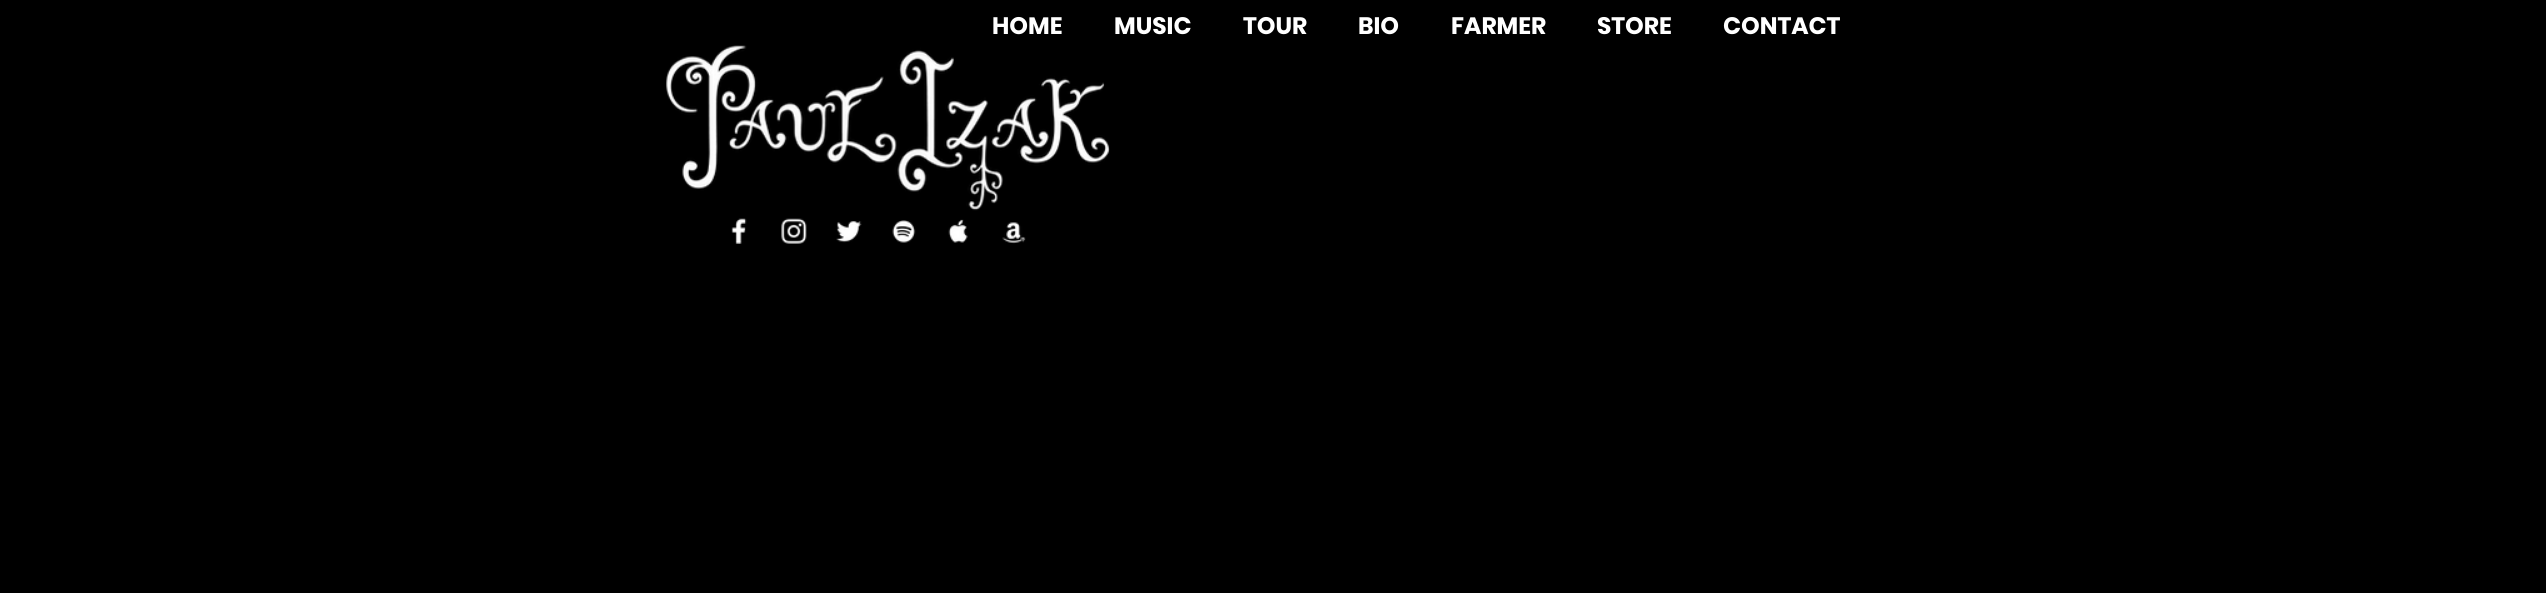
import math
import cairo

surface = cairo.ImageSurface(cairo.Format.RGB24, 2546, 593)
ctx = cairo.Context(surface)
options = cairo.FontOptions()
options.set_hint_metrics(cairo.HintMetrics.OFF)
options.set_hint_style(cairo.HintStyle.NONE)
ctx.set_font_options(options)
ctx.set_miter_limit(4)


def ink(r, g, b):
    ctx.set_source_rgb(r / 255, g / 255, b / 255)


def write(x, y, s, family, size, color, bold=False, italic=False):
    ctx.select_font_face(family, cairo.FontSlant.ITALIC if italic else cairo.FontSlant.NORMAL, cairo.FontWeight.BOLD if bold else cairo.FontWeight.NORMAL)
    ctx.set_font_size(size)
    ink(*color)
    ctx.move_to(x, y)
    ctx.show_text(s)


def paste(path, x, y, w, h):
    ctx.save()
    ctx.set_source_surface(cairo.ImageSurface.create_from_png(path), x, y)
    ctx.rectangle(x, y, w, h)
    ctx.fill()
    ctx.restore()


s1 = dict(family="Poppins", size=23.75, color=(255, 255, 255), bold=True)

ink(0, 0, 0)
ctx.paint()
write(992, 34, "HOME", **s1)
write(1114, 34, "MUSIC", **s1)
write(1243, 34, "TOUR", **s1)
write(1358, 34, "BIO", **s1)
write(1451, 34, "FARMER", **s1)
write(1597, 34, "STORE", **s1)
write(1723, 34, "CONTACT", **s1)
paste("pic1.png", 666, 45, 444, 166)
paste("pic2.png", 731, 218, 16, 26)
paste("pic3.png", 781, 218, 26, 26)
paste("pic4.png", 836, 221, 26, 22)
paste("pic5.png", 892, 220, 24, 23)
paste("pic6.png", 948, 219, 20, 24)
paste("pic7.png", 1002, 222, 24, 22)
surface.write_to_png("screenshot.png")
